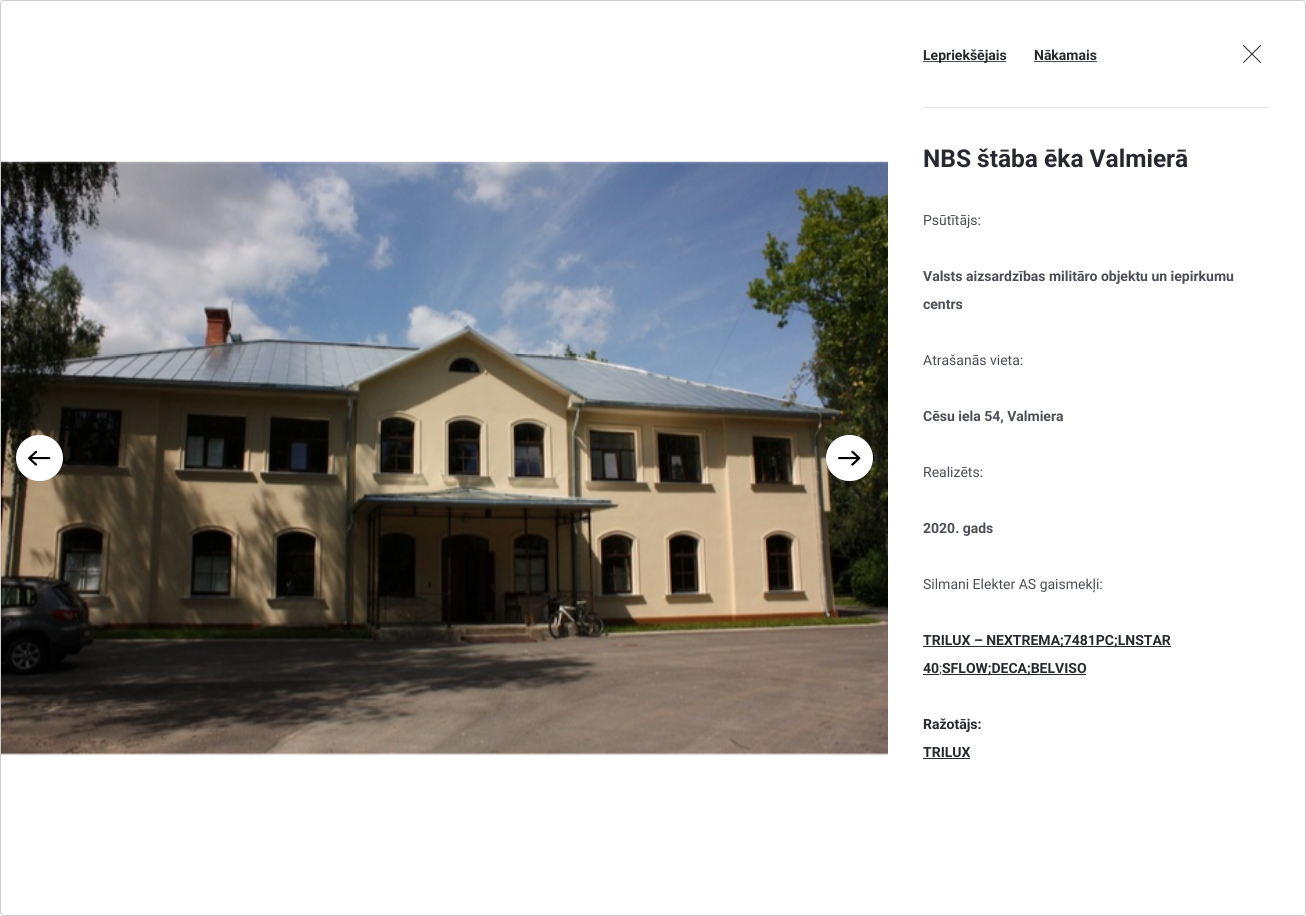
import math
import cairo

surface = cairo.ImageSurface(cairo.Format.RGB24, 1306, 916)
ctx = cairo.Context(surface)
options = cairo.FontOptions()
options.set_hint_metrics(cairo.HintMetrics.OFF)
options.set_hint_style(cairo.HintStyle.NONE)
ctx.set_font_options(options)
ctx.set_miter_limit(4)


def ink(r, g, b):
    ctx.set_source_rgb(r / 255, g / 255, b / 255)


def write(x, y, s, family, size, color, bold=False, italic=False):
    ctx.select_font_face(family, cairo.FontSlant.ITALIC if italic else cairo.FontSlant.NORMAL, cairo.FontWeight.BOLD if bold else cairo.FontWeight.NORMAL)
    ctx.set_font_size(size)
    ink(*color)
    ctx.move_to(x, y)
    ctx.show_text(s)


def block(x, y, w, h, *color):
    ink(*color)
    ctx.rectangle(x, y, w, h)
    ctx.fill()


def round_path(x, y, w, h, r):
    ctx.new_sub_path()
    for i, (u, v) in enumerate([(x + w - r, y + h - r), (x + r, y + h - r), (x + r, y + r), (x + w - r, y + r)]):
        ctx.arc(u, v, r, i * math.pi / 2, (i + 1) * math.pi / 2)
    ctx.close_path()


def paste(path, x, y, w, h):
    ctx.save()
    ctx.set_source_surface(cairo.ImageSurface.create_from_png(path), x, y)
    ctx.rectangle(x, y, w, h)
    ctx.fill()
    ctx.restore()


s1 = dict(family="Roboto", size=14, color=(38, 41, 48), bold=True)
s2 = dict(family="Roboto", size=24.5, color=(38, 41, 48), bold=True)
s3 = dict(family="Roboto", size=14, color=(75, 78, 87))
s4 = dict(family="Roboto", size=14, color=(75, 78, 87), bold=True)

ink(255, 255, 255)
ctx.paint()
round_path(0.5, 0.5, 1305, 915, 3.5)
ink(204, 204, 204)
ctx.set_line_width(1)
ctx.stroke()
paste("pic1.png", 1, 161, 887, 595)
ink(255, 255, 255)
round_path(16, 435, 47, 46, 23)
ctx.fill()
paste("pic2.png", 28, 450, 23, 16)
round_path(826, 435, 47, 46, 23)
ctx.fill()
paste("pic3.png", 838, 450, 23, 16)
block(923, 107, 347, 1, 230, 230, 230)
block(923, 61, 83, 1, 75, 78, 87)
write(923, 60, "Lepriekšējais", **s1)
write(1034, 60, "Nākamais", **s1)
block(1034, 61, 63, 1, 75, 78, 87)
paste("pic4.png", 1243, 45, 18, 18)
write(923, 167, "NBS štāba ēka Valmierā", **s2)
write(923, 225, "Psūtītājs:", **s3)
write(923, 281, "Valsts aizsardzības militāro objektu un iepirkumu", **s4)
write(923, 309, "centrs", **s4)
write(923, 365, "Atrašanās vieta:", **s3)
write(923, 421, "Cēsu iela 54, Valmiera", **s4)
write(923, 477, "Realizēts:", **s3)
write(923, 533, "2020. gads", **s4)
write(923, 589, "Silmani Elekter AS gaismekļi:", **s3)
block(923, 646, 248, 1, 38, 41, 48)
write(923, 645, "TRILUX – NEXTREMA;7481PC;LNSTAR", **s1)
write(923, 673, "40", **s1)
block(923, 674, 16, 1, 38, 41, 48)
write(939, 673, ";", **s3)
block(942, 674, 144, 1, 38, 41, 48)
write(942, 673, "SFLOW;DECA;BELVISO", **s1)
write(923, 729, "Ražotājs:", **s1)
write(923, 757, "TRILUX", **s1)
block(923, 758, 47, 1, 38, 41, 48)
surface.write_to_png("screenshot.png")
